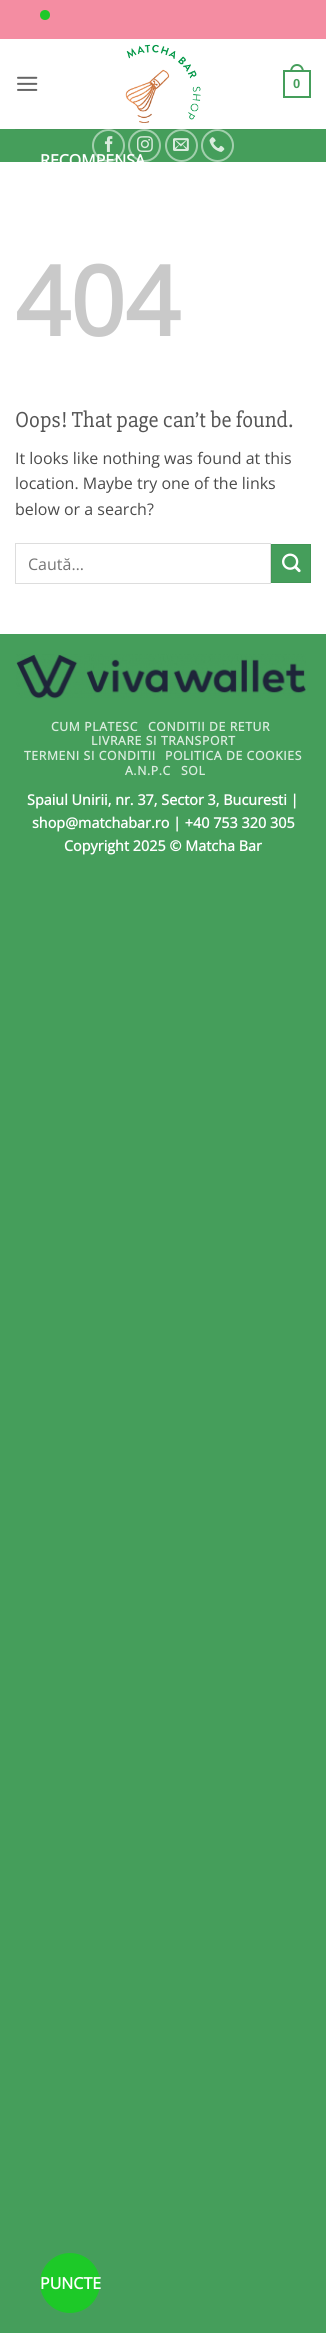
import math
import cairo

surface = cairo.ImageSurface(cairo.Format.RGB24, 326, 2333)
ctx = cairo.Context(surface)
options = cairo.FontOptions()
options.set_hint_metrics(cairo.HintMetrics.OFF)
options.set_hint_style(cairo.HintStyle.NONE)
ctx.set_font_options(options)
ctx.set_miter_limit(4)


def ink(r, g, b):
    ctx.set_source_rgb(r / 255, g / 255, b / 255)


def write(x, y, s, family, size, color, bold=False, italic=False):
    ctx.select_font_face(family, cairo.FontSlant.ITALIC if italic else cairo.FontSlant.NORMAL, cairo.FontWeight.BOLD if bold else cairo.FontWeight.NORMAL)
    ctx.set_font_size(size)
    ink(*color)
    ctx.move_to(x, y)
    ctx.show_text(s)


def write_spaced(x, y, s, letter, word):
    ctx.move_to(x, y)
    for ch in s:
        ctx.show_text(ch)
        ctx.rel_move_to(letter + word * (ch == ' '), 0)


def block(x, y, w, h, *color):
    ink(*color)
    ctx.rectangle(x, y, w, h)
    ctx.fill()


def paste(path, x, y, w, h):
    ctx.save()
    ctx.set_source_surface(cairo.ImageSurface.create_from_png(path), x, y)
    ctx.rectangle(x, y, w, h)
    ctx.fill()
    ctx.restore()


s1 = dict(family="Liberation Sans", size=13, color=(69, 158, 91), bold=True)
s2 = dict(family="Open Sans", size=96, color=(201, 201, 201), bold=True)
s3 = dict(family="Slabo 27px", size=22.4, color=(85, 85, 85))
s4 = dict(family="Open Sans", size=16, color=(74, 74, 74))
s5 = dict(family="Open Sans", size=16, color=(117, 117, 117))
s6 = dict(family="Open Sans", size=14.4, color=(255, 255, 255), bold=True)
s7 = dict(family="Open Sans", size=16, color=(255, 255, 255), bold=True)

ink(69, 158, 91)
ctx.paint()
block(0, 39, 326, 595, 255, 255, 255)
block(0, 0, 326, 39, 244, 141, 162)
paste("pic1.png", 17, 76, 21, 15)
paste("pic2.png", 125, 44, 76, 79)
ctx.rectangle(284, 71, 26, 26)
ink(69, 158, 91)
ctx.stroke()
ctx.set_fill_rule(cairo.FillRule.EVEN_ODD)
ctx.new_path()
ctx.move_to(297, 64)
ctx.curve_to(301.5, 64, 304, 68, 304, 72)
ctx.line_to(290, 72)
ctx.curve_to(290, 68, 292.5, 64, 297, 64)
ctx.close_path()
ctx.move_to(297, 66)
ctx.curve_to(300.5, 66, 302, 69, 302, 72)
ctx.line_to(292, 72)
ctx.curve_to(292, 69, 293.5, 66, 297, 66)
ctx.close_path()
ctx.fill()
write(293, 88, "0", **s1)
block(0, 129, 326, 33, 69, 158, 91)
ctx.new_path()
ctx.arc(108.5, 145.5, 15.5, 0, 2 * math.pi)
ink(162, 207, 173)
ctx.stroke()
ctx.arc(144.5, 145.5, 15.5, 0, 2 * math.pi)
ctx.stroke()
ctx.arc(181.5, 145.5, 15.5, 0, 2 * math.pi)
ctx.stroke()
ctx.arc(217.5, 145.5, 15.5, 0, 2 * math.pi)
ctx.stroke()
ctx.set_source_rgba(0.29, 0.29, 0.29, 0.1)
ctx.rectangle(15, 129, 296, 1)
ctx.fill()
paste("pic3.png", 104, 136, 9, 16)
paste("pic4.png", 137, 136, 16, 16)
paste("pic5.png", 173, 138, 16, 13)
paste("pic6.png", 209, 137, 16, 15)
write(15, 336, "404", **s2)
write(15, 427, "Oops! That page can’t be found.", **s3)
write(15, 464, "It looks like nothing was found at this", **s4)
write(15, 489, "location. Maybe try one of the links", **s4)
write(15, 515, "below or a search?", **s4)
ctx.rectangle(15.5, 543.5, 255, 40)
ink(221, 221, 221)
ctx.set_line_width(1)
ctx.stroke()
write(28, 570, "Caută…", **s5)
ink(69, 158, 91)
ctx.rectangle(271.5, 544.5, 39, 38)
ctx.fill_preserve()
ink(66, 150, 86)
ctx.stroke()
paste("pic7.png", 282, 553, 19, 20)
paste("pic8.png", 16, 654, 290, 45)
ctx.select_font_face("Open Sans", cairo.FontSlant.NORMAL, cairo.FontWeight.BOLD)
ctx.set_font_size(12.25)
ink(218, 236, 222)
write_spaced(51, 731, "CUM PLATESC", 0.6, 0)
write_spaced(148, 731, "CONDITII DE RETUR", 0.6, 0)
write_spaced(91, 745, "LIVRARE SI TRANSPORT", 0.6, 0)
write_spaced(24, 760, "TERMENI SI CONDITII", 0.6, 0)
write_spaced(165, 760, "POLITICA DE COOKIES", 0.6, 0)
write_spaced(125, 775, "A.N.P.C", 0.6, 0)
write_spaced(181, 775, "SOL", 0.6, 0)
write(27, 805, "Spaiul Unirii, nr. 37, Sector 3, Bucuresti |", **s6)
write(32, 828, "shop@matchabar.ro | +40 753 320 305", **s6)
write(64, 851, "Copyright 2025 © Matcha Bar", **s6)
ink(29, 201, 40)
ctx.new_path()
ctx.arc(45, 15, 5, 0, 2 * math.pi)
ctx.fill()
write(40, 166, "RECOMPENSA", **s7)
ink(29, 201, 40)
ctx.new_path()
ctx.arc(70, 2283, 30, 0, 2 * math.pi)
ctx.fill()
write(40, 2289, "PUNCTE", **s7)
surface.write_to_png("screenshot.png")
